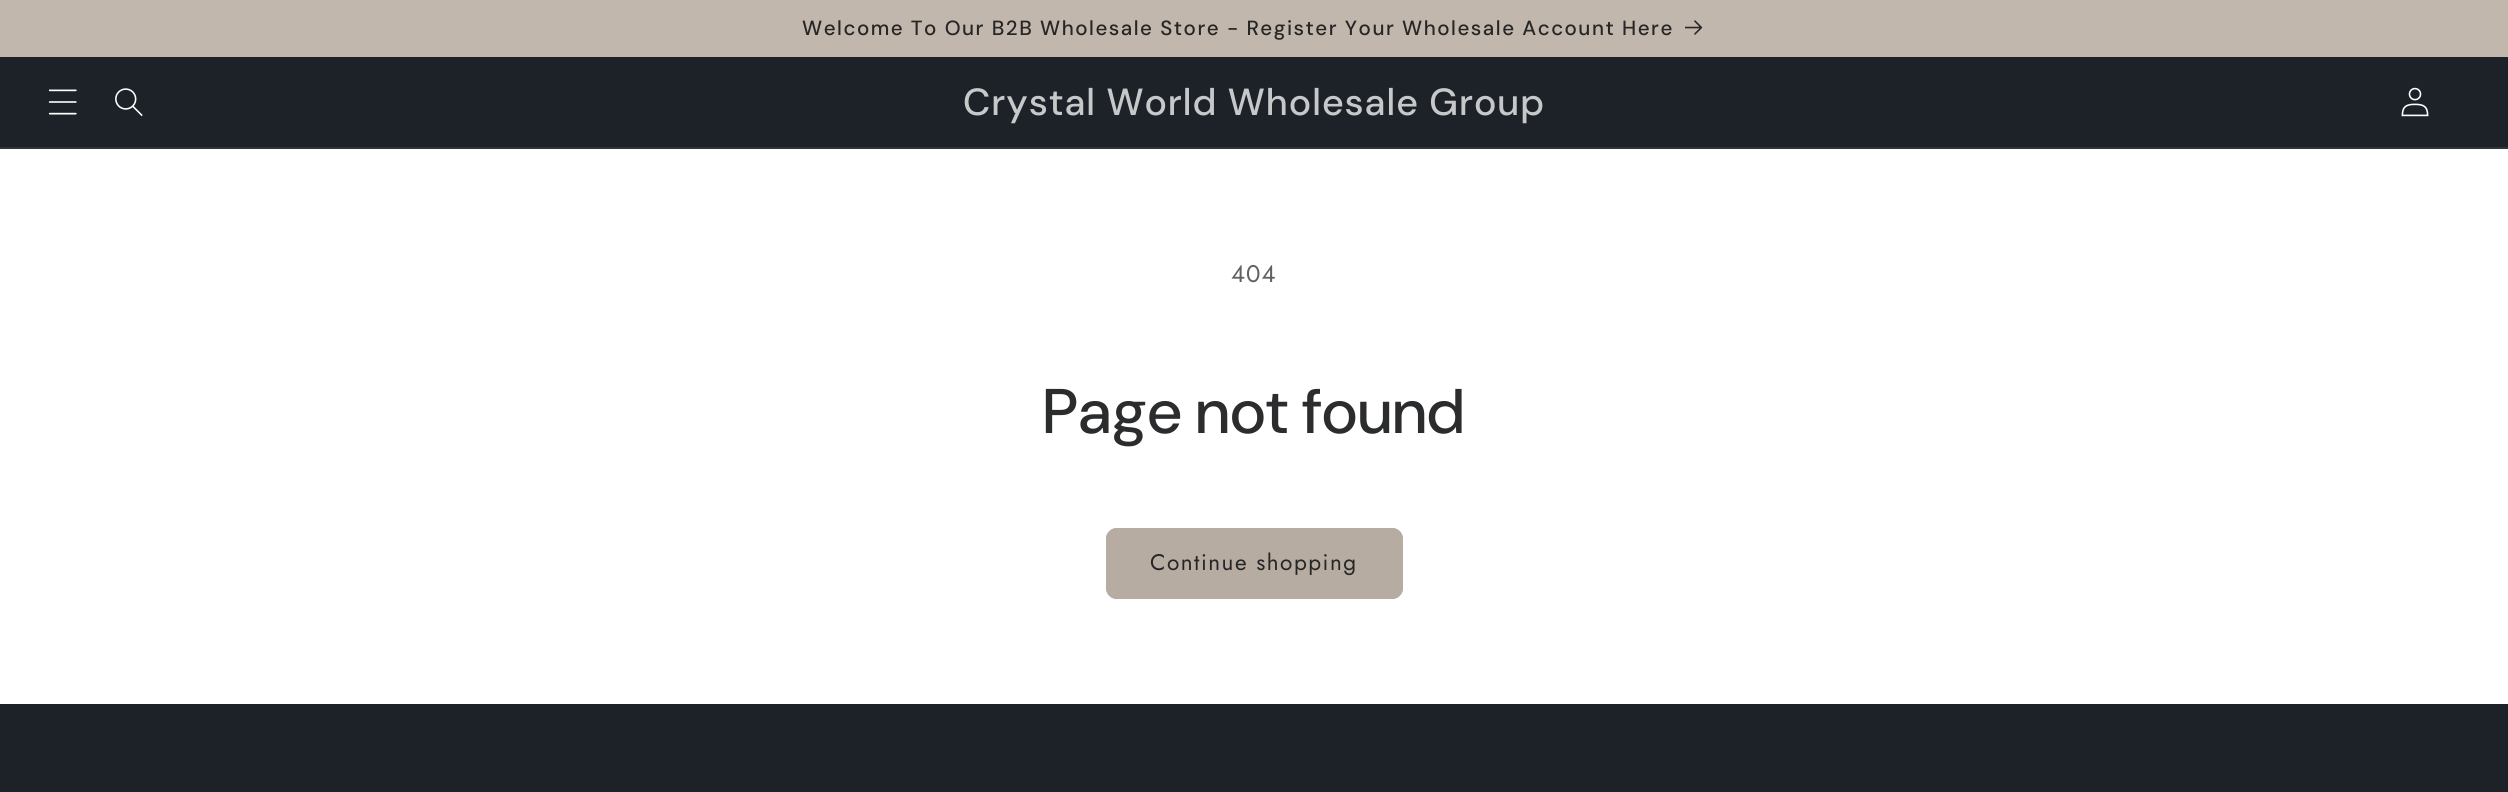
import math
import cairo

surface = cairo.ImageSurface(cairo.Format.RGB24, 2508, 792)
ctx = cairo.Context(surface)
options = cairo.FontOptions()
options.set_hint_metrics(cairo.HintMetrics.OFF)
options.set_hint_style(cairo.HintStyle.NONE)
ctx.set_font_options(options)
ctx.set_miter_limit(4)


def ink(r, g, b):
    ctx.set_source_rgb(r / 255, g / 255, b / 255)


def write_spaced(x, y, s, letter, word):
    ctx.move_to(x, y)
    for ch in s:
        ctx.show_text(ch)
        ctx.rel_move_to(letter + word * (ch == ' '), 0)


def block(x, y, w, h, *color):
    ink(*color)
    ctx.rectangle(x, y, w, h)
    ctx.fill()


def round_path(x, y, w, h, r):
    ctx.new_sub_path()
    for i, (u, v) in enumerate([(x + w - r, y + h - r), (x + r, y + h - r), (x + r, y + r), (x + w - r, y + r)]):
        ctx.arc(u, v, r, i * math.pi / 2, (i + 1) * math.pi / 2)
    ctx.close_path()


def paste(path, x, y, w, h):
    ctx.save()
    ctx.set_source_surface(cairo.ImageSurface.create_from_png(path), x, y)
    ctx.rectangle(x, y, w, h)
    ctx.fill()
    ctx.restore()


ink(255, 255, 255)
ctx.paint()
block(0, 0, 2508, 57, 194, 183, 172)
ctx.select_font_face("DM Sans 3 Medium")
ctx.set_font_size(20.5)
ink(38, 38, 38)
write_spaced(802, 35, "Welcome To Our B2B Wholesale Store - Register Your Wholesale Account Here", 1.5, 0)
paste("pic1.png", 1685, 20, 18, 15)
block(0, 57, 2508, 90, 28, 34, 40)
block(0, 147, 2508, 2, 46, 52, 57)
paste("pic2.png", 48, 89, 29, 26)
paste("pic3.png", 115, 88, 28, 28)
ctx.select_font_face("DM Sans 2 Medium")
ctx.set_font_size(37.75)
ink(198, 200, 201)
write_spaced(963, 115, "Crystal World Wholesale Group", 0.95, 0)
paste("pic4.png", 2401, 87, 28, 30)
ctx.select_font_face("Jost")
ctx.set_font_size(24)
ink(96, 97, 98)
write_spaced(1231, 282, "404", 1, 0)
ctx.select_font_face("DM Sans Medium")
ctx.set_font_size(63)
ink(43, 44, 45)
write_spaced(1043, 433, "Page not found", 0.95, 0)
ink(183, 172, 162)
round_path(1106, 528, 297, 71, 11)
ctx.fill()
round_path(1107, 529, 295, 69, 10)
ctx.stroke()
ctx.select_font_face("Jost")
ctx.set_font_size(22.5)
ink(38, 38, 38)
write_spaced(1150, 570, "Continue shopping", 1.5, 0)
block(0, 704, 2508, 88, 28, 34, 40)
surface.write_to_png("screenshot.png")
